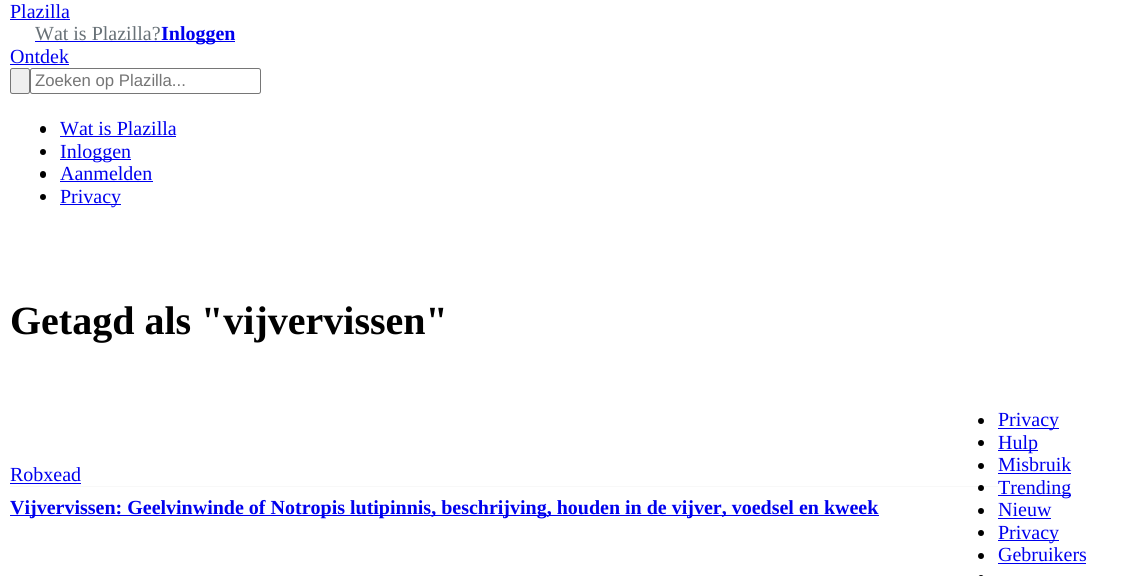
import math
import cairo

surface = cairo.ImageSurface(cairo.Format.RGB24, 1146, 576)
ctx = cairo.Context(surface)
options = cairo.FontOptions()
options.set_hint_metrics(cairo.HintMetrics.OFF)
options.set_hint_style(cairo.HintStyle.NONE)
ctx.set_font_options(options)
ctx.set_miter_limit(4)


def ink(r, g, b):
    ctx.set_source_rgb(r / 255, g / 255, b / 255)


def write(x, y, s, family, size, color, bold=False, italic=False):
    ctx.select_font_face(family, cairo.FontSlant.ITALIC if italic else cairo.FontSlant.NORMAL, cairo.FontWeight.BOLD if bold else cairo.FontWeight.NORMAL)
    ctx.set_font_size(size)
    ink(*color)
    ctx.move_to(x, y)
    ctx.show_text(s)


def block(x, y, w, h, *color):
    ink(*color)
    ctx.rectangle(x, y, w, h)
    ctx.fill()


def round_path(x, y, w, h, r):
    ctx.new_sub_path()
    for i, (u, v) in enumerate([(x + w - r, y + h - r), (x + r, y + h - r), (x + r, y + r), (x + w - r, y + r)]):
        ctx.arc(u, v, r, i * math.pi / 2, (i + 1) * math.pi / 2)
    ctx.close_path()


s1 = dict(family="Liberation Serif", size=20, color=(0, 0, 238))
s2 = dict(family="Liberation Serif", size=20, color=(104, 113, 119))
s3 = dict(family="Liberation Serif", size=20, color=(0, 0, 238), bold=True)
s4 = dict(family="Liberation Sans", size=16.75, color=(117, 117, 117))
s5 = dict(family="Liberation Serif", size=40, color=(0, 0, 0), bold=True)

ink(255, 255, 255)
ctx.paint()
write(10, 18, "Plazilla", **s1)
block(10, 19, 60, 1, 0, 0, 238)
write(35, 40, "Wat is Plazilla?", **s2)
block(35, 41, 200, 1, 0, 0, 238)
write(161, 40, "Inloggen", **s3)
write(10, 63, "Ontdek", **s1)
block(10, 64, 59, 1, 0, 0, 238)
ink(239, 239, 239)
round_path(10.5, 68.5, 19, 25, 2)
ctx.fill_preserve()
ink(118, 118, 118)
ctx.set_line_width(1)
ctx.stroke()
round_path(30.5, 68.5, 230, 25, 2)
ctx.stroke()
write(35, 86, "Zoeken op Plazilla...", **s4)
ink(0, 0, 0)
round_path(40, 126, 6, 7, 3)
ctx.fill()
write(60, 135, "Wat is Plazilla", **s1)
block(60, 136, 116, 1, 0, 0, 238)
ink(0, 0, 0)
ctx.new_path()
ctx.arc(43, 152, 3, 0, 2 * math.pi)
ctx.fill()
block(60, 159, 71, 1, 0, 0, 238)
write(60, 158, "Inloggen", **s1)
ink(0, 0, 0)
round_path(40, 171, 6, 7, 3)
ctx.fill()
write(60, 180, "Aanmelden", **s1)
block(60, 181, 93, 1, 0, 0, 238)
ink(0, 0, 0)
ctx.new_path()
ctx.arc(43, 197, 3, 0, 2 * math.pi)
ctx.fill()
block(60, 204, 61, 1, 0, 0, 238)
write(60, 203, "Privacy", **s1)
write(10, 334, "Getagd als \"vijvervissen\"", **s5)
block(10, 486, 988, 1, 248, 248, 248)
write(10, 481, "Robxead", **s1)
block(10, 483, 71, 1, 0, 0, 238)
block(10, 515, 869, 1, 0, 0, 238)
write(10, 514, "Vijvervissen: Geelvinwinde of Notropis lutipinnis, beschrijving, houden in de vijver, voedsel en kweek", **s3)
ink(0, 0, 0)
ctx.new_path()
ctx.arc(981, 421, 3, 0, 2 * math.pi)
ctx.fill()
block(998, 428, 61, 1, 0, 0, 238)
write(998, 426, "Privacy", **s1)
ink(0, 0, 0)
ctx.new_path()
ctx.arc(981, 443, 3, 0, 2 * math.pi)
ctx.fill()
block(998, 450, 40, 1, 0, 0, 238)
write(998, 449, "Hulp", **s1)
ink(0, 0, 0)
ctx.new_path()
ctx.arc(981, 466, 3, 0, 2 * math.pi)
ctx.fill()
write(998, 471, "Misbruik", **s1)
block(998, 473, 73, 1, 0, 0, 238)
ink(0, 0, 0)
ctx.new_path()
ctx.arc(981, 488, 3, 0, 2 * math.pi)
ctx.fill()
block(998, 495, 73, 1, 0, 0, 238)
write(998, 494, "Trending", **s1)
ink(0, 0, 0)
ctx.new_path()
ctx.arc(981, 511, 3, 0, 2 * math.pi)
ctx.fill()
write(998, 516, "Nieuw", **s1)
block(998, 518, 53, 1, 0, 0, 238)
ink(0, 0, 0)
ctx.new_path()
ctx.arc(981, 533, 3, 0, 2 * math.pi)
ctx.fill()
block(998, 540, 61, 1, 0, 0, 238)
write(998, 539, "Privacy", **s1)
ink(0, 0, 0)
ctx.new_path()
ctx.arc(981, 556, 3, 0, 2 * math.pi)
ctx.fill()
write(998, 561, "Gebruikers", **s1)
block(998, 563, 88, 1, 0, 0, 238)
ink(0, 0, 0)
round_path(978, 575, 6, 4, 3)
ctx.fill()
surface.write_to_png("screenshot.png")
